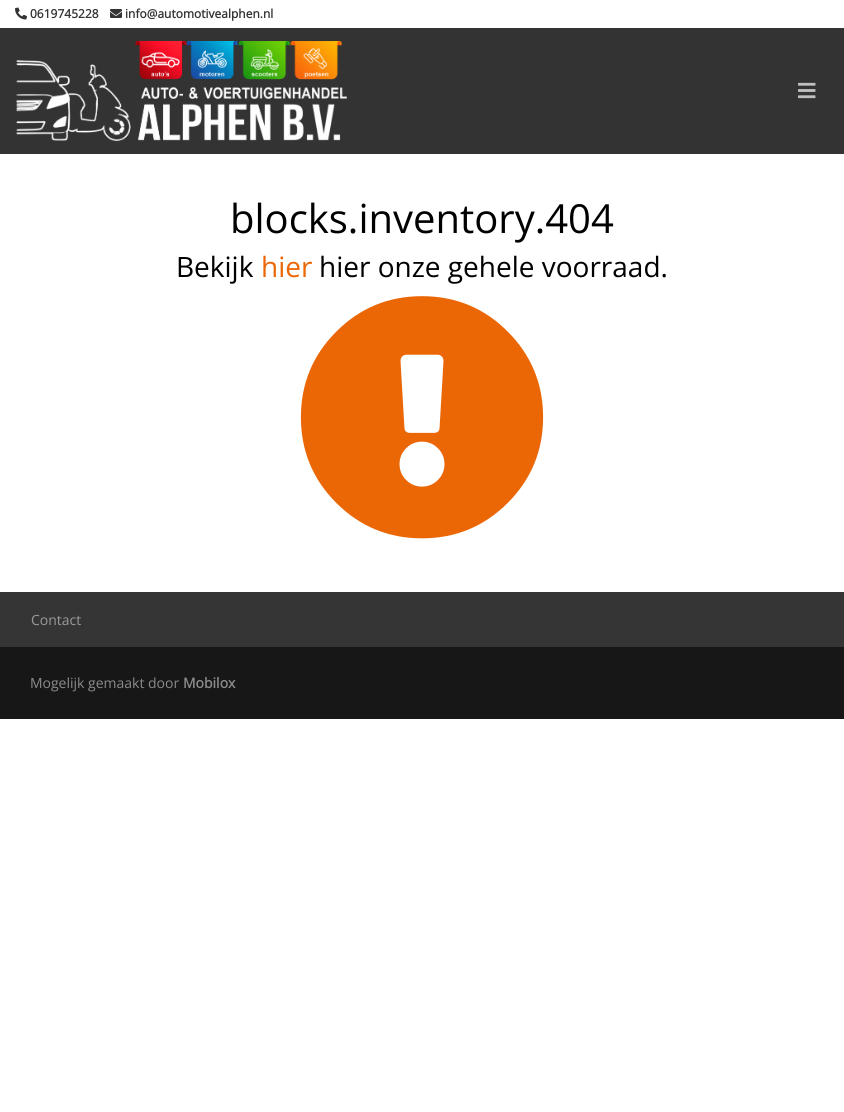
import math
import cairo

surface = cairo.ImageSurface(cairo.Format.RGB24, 844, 1112)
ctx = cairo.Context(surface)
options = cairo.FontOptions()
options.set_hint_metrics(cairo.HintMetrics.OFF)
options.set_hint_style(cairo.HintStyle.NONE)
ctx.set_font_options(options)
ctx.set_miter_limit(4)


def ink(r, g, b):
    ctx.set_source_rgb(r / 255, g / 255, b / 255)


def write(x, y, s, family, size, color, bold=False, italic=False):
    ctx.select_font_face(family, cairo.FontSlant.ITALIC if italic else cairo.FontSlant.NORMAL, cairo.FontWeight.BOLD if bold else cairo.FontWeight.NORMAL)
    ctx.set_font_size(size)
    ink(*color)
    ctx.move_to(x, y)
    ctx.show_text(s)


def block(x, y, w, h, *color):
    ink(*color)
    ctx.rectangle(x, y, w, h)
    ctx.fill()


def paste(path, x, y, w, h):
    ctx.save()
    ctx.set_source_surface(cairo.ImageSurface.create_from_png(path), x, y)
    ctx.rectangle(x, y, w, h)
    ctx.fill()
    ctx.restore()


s1 = dict(family="Open Sans", size=12, color=(51, 51, 51), bold=True)
s2 = dict(family="Open Sans", size=40, color=(0, 0, 0))
s3 = dict(family="Open Sans", size=28, color=(0, 0, 0))
s4 = dict(family="Open Sans", size=28, color=(235, 103, 6))
s5 = dict(family="Open Sans", size=14, color=(154, 154, 154))
s6 = dict(family="Open Sans", size=14, color=(139, 139, 139))
s7 = dict(family="Open Sans", size=14, color=(139, 139, 139), bold=True)

ink(255, 255, 255)
ctx.paint()
paste("pic1.png", 15, 7, 12, 13)
write(30, 18, "0619745228", **s1)
paste("pic2.png", 110, 9, 12, 9)
write(125, 18, "info@automotivealphen.nl", **s1)
block(0, 28, 844, 126, 51, 51, 51)
paste("pic3.png", 16, 41, 331, 100)
paste("pic4.png", 798, 82, 18, 17)
write(230, 233, "blocks.inventory.404", **s2)
write(176, 277, "Bekijk", **s3)
write(261, 277, "hier", **s4)
write(319, 277, "hier onze gehele voorraad.", **s3)
paste("pic5.png", 300, 296, 244, 243)
block(0, 592, 844, 55, 53, 53, 53)
write(31, 625, "Contact", **s5)
block(0, 647, 844, 72, 23, 23, 23)
write(30, 688, "Mogelijk gemaakt door", **s6)
write(183, 688, "Mobilox", **s7)
surface.write_to_png("screenshot.png")
